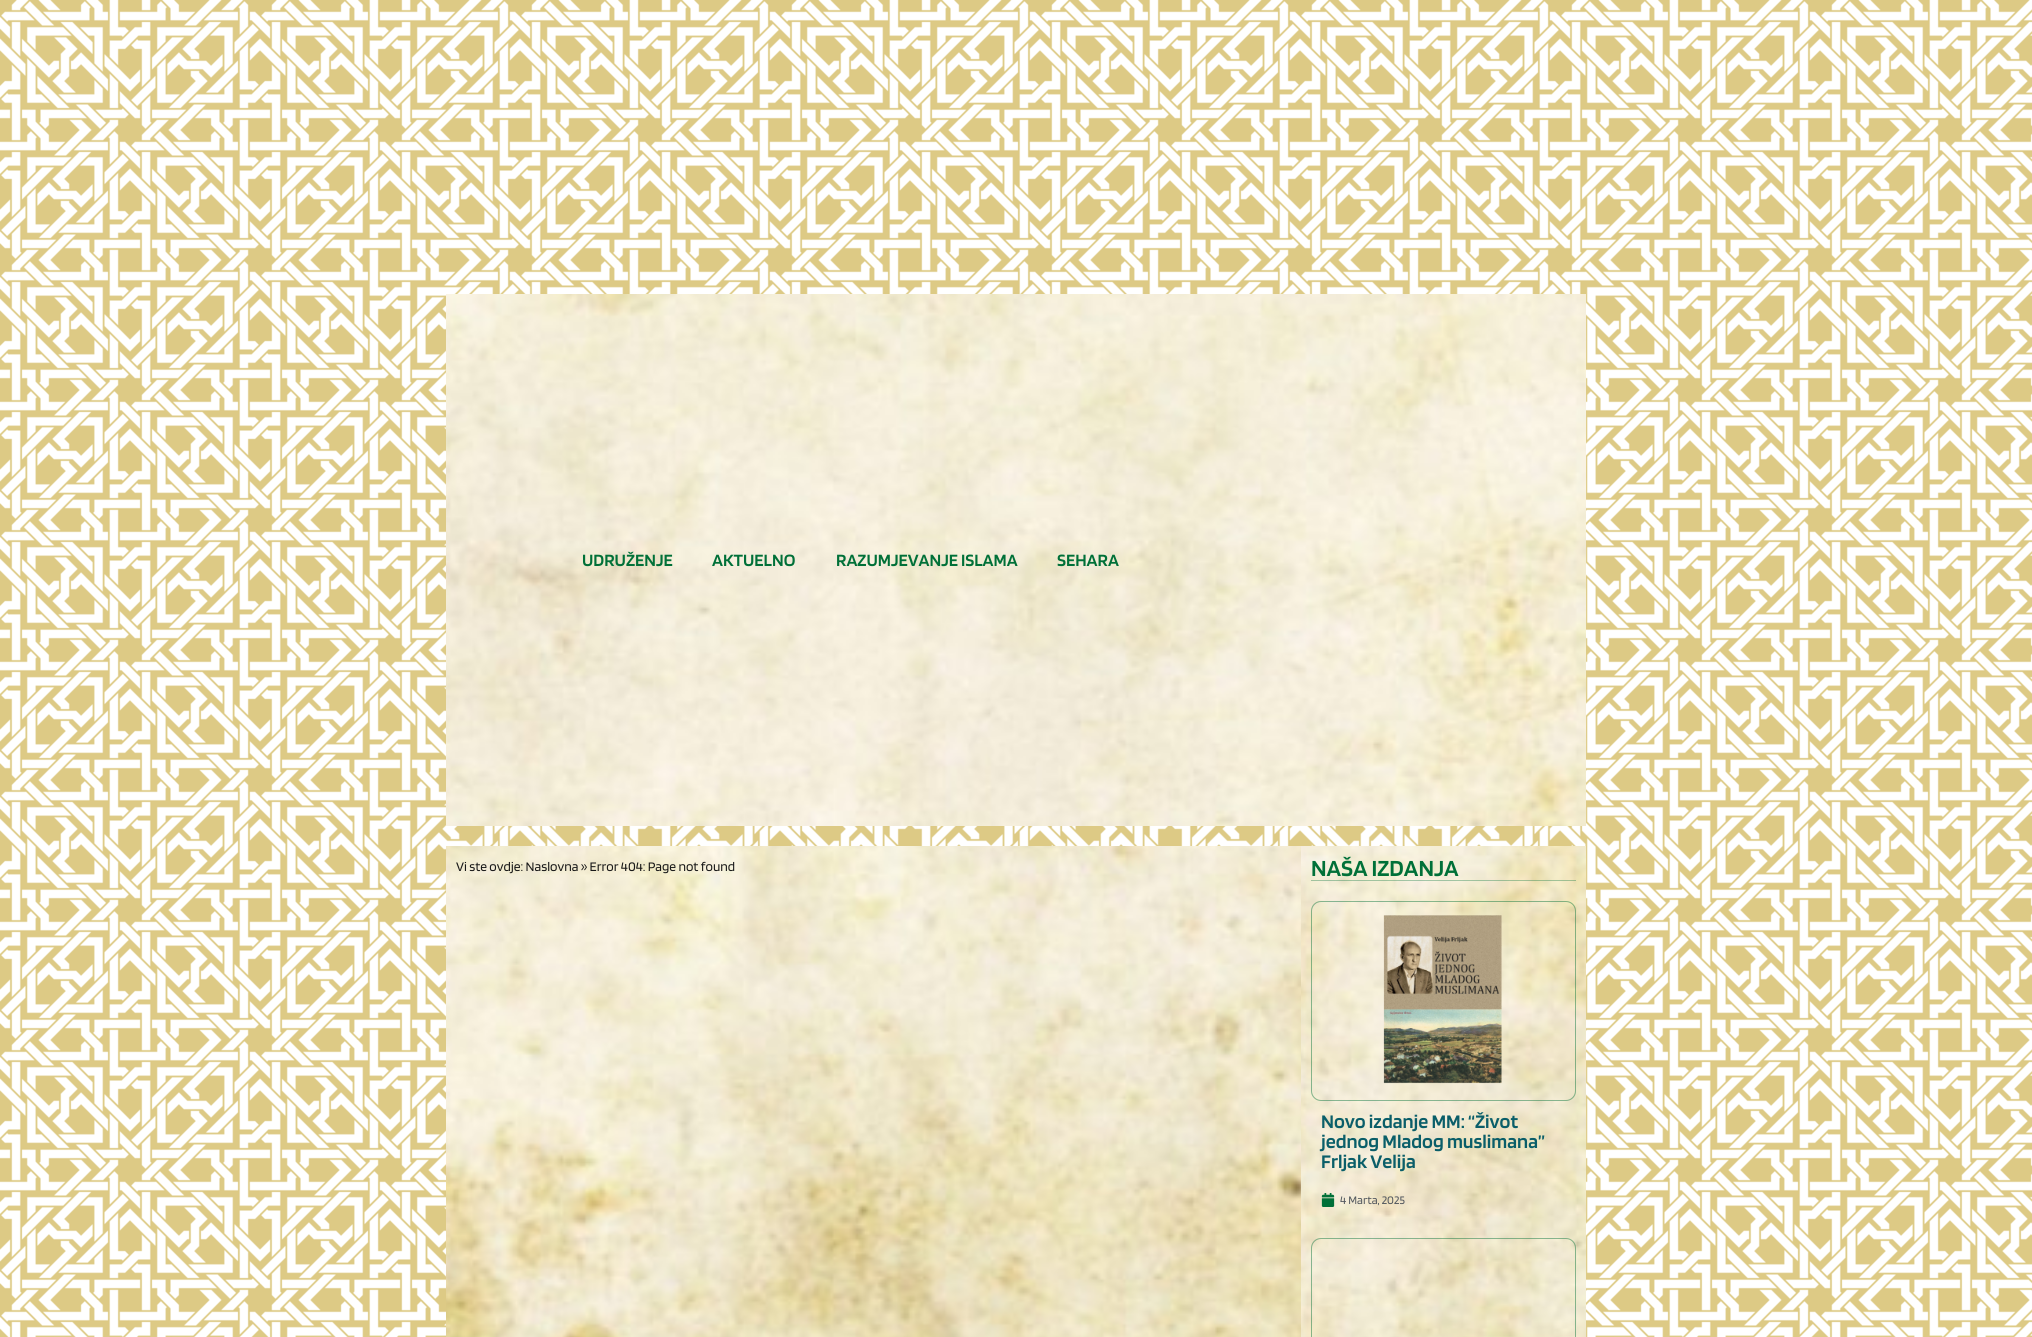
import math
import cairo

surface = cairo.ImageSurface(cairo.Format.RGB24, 2032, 1337)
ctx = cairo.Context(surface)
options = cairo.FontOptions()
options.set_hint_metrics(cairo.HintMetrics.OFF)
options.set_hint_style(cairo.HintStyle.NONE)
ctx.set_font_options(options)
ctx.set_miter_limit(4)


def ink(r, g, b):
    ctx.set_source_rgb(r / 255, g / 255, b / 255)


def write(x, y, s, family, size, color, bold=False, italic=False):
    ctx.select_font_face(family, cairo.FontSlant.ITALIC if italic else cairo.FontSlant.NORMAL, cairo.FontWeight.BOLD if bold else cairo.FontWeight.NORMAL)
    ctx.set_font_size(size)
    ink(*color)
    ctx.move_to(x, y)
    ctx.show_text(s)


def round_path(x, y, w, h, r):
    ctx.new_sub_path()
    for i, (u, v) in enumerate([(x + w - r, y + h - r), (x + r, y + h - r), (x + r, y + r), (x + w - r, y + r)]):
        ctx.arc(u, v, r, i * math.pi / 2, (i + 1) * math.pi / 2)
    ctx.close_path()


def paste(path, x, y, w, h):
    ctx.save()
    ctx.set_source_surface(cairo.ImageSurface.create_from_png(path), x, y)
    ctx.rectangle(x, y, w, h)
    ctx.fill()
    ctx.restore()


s1 = dict(family="Blinker SemiBold", size=18, color=(0, 112, 56))
s2 = dict(family="Blinker", size=13.6, color=(24, 24, 24))
s3 = dict(family="Blinker SemiBold", size=24, color=(0, 112, 56))
s4 = dict(family="Blinker SemiBold", size=20, color=(10, 94, 105))
s5 = dict(family="Blinker", size=12, color=(84, 89, 95))

ink(255, 255, 255)
ctx.paint()
paste("pic1.png", 0, 0, 2032, 1337)
paste("pic2.png", 446, 294, 1140, 532)
write(582, 566, "UDRUŽENJE", **s1)
write(712, 566, "AKTUELNO", **s1)
write(836, 566, "RAZUMJEVANJE ISLAMA", **s1)
write(1057, 566, "SEHARA", **s1)
paste("pic3.png", 446, 846, 855, 491)
write(456, 871, "Vi ste ovdje: Naslovna » Error 404: Page not found", **s2)
paste("pic4.png", 1301, 846, 285, 491)
ctx.set_source_rgba(0, 0.439, 0.22, 0.34)
ctx.rectangle(1311, 880, 265, 1)
ctx.fill()
write(1311, 876, "NAŠA IZDANJA", **s3)
paste("pic5.png", 1383, 915, 119, 169)
round_path(1311.5, 901.5, 264, 199, 9.5)
ctx.set_source_rgba(0, 0.439, 0.22, 0.34)
ctx.set_line_width(1)
ctx.stroke()
round_path(1311.5, 901.5, 264, 199, 9.5)
ctx.set_source_rgba(0, 0.439, 0.22, 0.17)
ctx.stroke()
write(1321, 1128, "Novo izdanje MM: “Život", **s4)
write(1321, 1148, "jednog Mladog muslimana”", **s4)
write(1321, 1168, "Frljak Velija", **s4)
paste("pic6.png", 1321, 1193, 14, 14)
write(1340, 1204, "4 Marta, 2025", **s5)
round_path(1311.5, 1238.5, 264, 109, 9.5)
ctx.set_source_rgba(0, 0.439, 0.22, 0.34)
ctx.stroke()
round_path(1311.5, 1238.5, 264, 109, 9.5)
ctx.set_source_rgba(0, 0.439, 0.22, 0.17)
ctx.stroke()
surface.write_to_png("screenshot.png")
